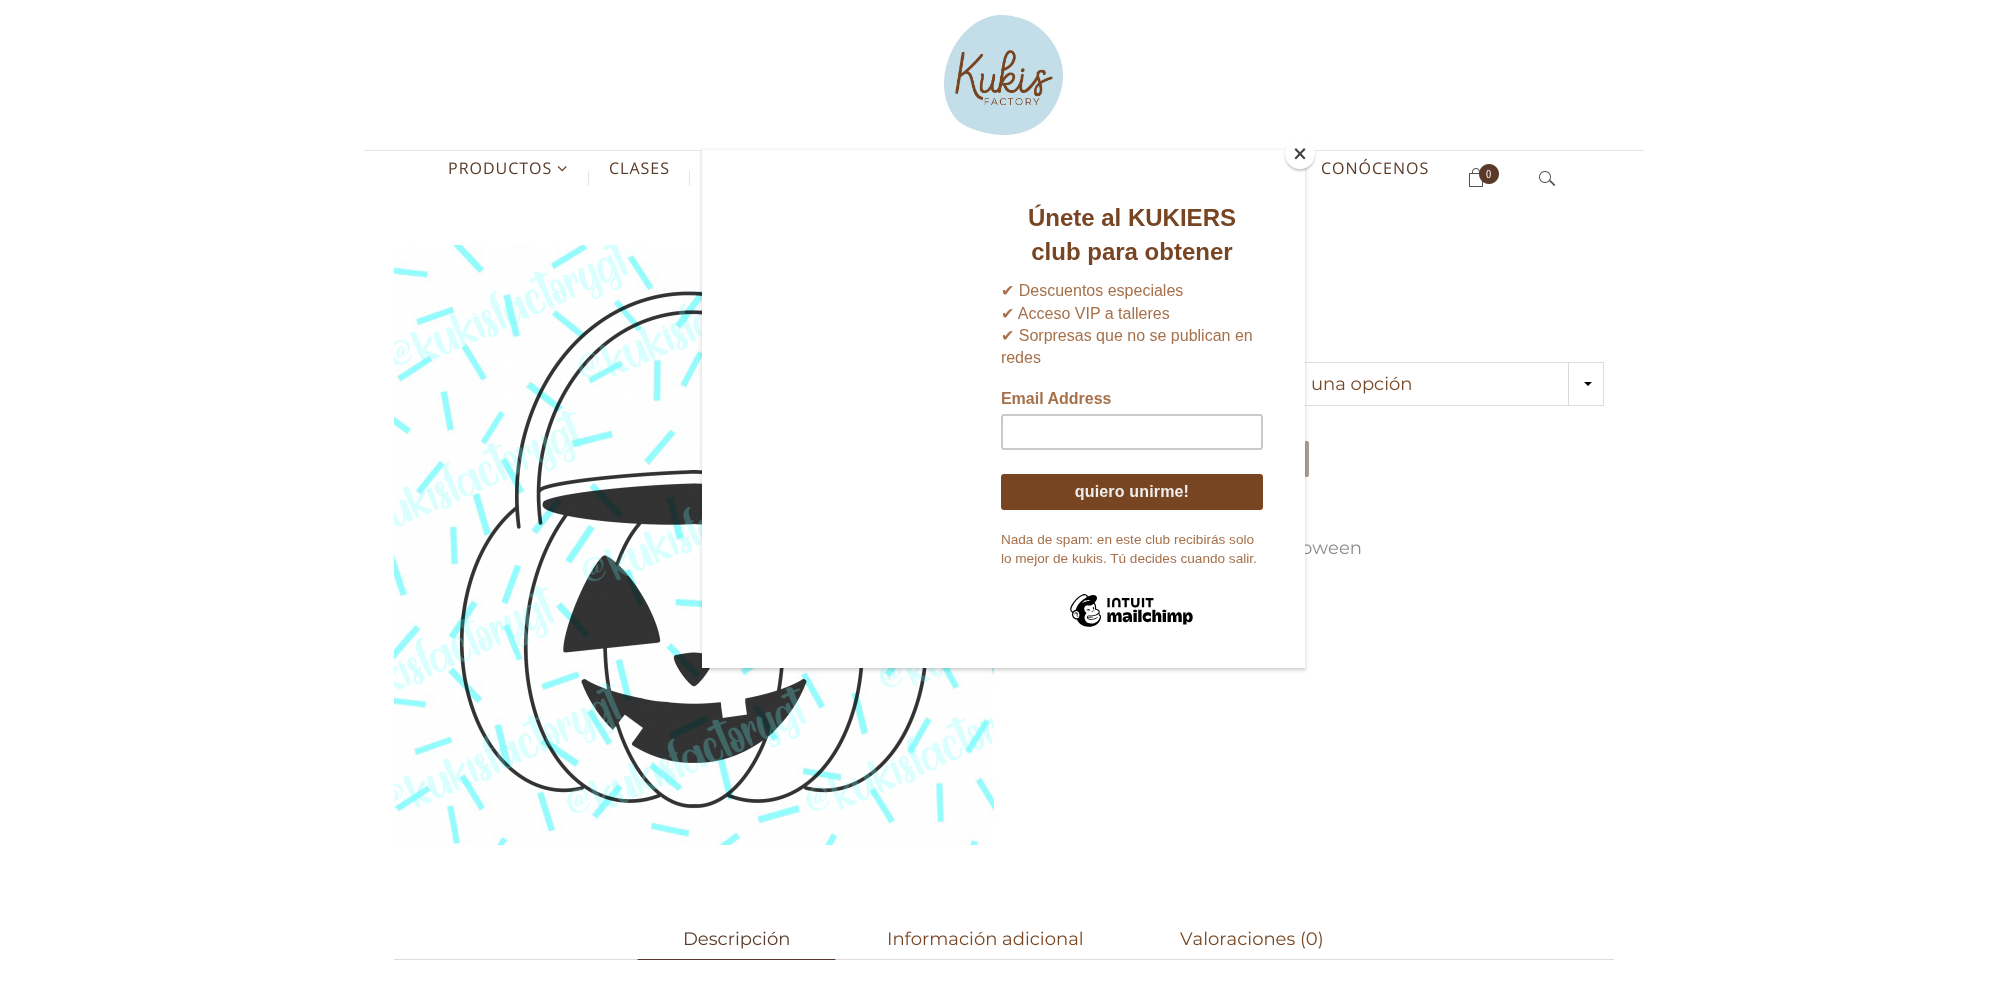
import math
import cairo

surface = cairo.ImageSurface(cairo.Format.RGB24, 2007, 991)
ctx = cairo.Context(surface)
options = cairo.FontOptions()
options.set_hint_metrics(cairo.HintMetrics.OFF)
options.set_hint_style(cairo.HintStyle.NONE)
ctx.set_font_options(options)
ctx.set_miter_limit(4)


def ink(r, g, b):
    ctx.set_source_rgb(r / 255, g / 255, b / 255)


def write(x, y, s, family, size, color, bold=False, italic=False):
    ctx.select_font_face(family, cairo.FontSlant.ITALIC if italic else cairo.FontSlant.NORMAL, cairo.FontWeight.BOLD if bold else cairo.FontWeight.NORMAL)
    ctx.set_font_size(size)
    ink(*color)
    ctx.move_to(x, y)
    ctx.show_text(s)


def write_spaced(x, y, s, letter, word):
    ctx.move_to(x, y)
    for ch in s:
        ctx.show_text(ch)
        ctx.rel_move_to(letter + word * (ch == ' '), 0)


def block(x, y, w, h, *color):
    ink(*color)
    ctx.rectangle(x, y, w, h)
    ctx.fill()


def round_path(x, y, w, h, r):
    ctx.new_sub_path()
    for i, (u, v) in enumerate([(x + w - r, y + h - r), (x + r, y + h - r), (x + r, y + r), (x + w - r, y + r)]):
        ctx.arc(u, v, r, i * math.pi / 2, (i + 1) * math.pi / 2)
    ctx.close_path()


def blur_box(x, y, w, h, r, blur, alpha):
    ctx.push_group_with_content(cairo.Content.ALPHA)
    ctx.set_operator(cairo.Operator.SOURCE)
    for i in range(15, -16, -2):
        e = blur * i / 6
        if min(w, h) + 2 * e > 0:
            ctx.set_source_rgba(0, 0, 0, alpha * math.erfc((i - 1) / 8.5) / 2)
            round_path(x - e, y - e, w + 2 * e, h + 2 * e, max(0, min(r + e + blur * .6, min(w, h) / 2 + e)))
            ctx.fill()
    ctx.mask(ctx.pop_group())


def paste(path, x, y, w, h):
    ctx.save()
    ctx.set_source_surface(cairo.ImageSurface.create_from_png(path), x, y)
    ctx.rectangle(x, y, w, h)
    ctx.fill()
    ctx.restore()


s1 = dict(family="Montserrat", size=18, color=(136, 136, 136))
s2 = dict(family="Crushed", size=12, color=(255, 255, 255))
s3 = dict(family="Montserrat", size=18, color=(119, 69, 34))
s4 = dict(family="Montserrat", size=18, color=(89, 58, 41))

ink(255, 255, 255)
ctx.paint()
block(364, 150, 1280, 1, 229, 229, 229)
paste("pic4.png", 394, 245, 600, 600)
ctx.rectangle(1255.5, 362.5, 348, 43)
ink(221, 221, 221)
ctx.set_line_width(1)
ctx.stroke()
ink(172, 157, 148)
round_path(1135, 441, 174, 36, 2)
ctx.fill()
ink(0, 0, 0)
blur_box(702, 151, 603, 519, 0, 2, 0.2)
write(1301, 554, "oween", **s1)
paste("pic1.png", 702, 150, 603, 518)
ink(0, 0, 0)
blur_box(1285, 141, 30, 30, 15, 1, 0.2)
ink(255, 255, 255)
ctx.arc(1300, 154, 15, 0, 2 * math.pi)
ctx.fill()
ink(65, 65, 65)
ctx.new_path()
ctx.move_to(1304, 148)
ctx.line_to(1305.5, 149.5)
ctx.line_to(1296, 159.5)
ctx.line_to(1294.5, 158)
ctx.close_path()
ctx.fill()
ctx.new_path()
ctx.move_to(1294.5, 149.5)
ctx.line_to(1296, 148)
ctx.line_to(1305.5, 158)
ctx.line_to(1304, 159.5)
ctx.close_path()
ctx.fill()
paste("pic2.png", 944, 15, 119, 120)
ctx.select_font_face("Open Sans")
ctx.set_font_size(16)
ink(89, 58, 41)
write_spaced(448, 174, "PRODUCTOS", 1, 0)
paste("pic3.png", 557, 166, 10, 6)
block(588, 171, 1, 15, 229, 229, 229)
ink(89, 58, 41)
write_spaced(609, 174, "CLASES", 1, 0)
block(689, 171, 1, 15, 229, 229, 229)
ink(89, 58, 41)
write_spaced(1321, 174, "CONÓCENOS", 1, 0)
ctx.new_path()
ctx.move_to(1476, 168.5)
ctx.curve_to(1478, 168.5, 1479.5, 170, 1479.5, 172)
ctx.line_to(1479.5, 173.5)
ctx.line_to(1472.5, 173.5)
ctx.line_to(1472.5, 172)
ctx.curve_to(1472.5, 170, 1474, 168.5, 1476, 168.5)
ctx.close_path()
ink(85, 85, 85)
ctx.stroke()
ctx.rectangle(1469.5, 173.5, 13, 13)
ctx.stroke()
ink(89, 58, 41)
ctx.arc(1489, 174, 10, 0, 2 * math.pi)
ctx.fill()
write(1486, 178, "0", **s2)
ink(85, 85, 85)
ctx.new_path()
ctx.move_to(1549, 181)
ctx.line_to(1550.5, 180)
ctx.line_to(1555.5, 185)
ctx.line_to(1554, 186)
ctx.close_path()
ctx.fill()
ctx.arc(1545, 177, 5.5, 0, 2 * math.pi)
ctx.stroke()
write(1311, 390, "una opción", **s3)
block(1568, 363, 1, 42, 217, 217, 217)
ink(0, 0, 0)
ctx.new_path()
ctx.move_to(1584, 382)
ctx.line_to(1592, 382)
ctx.line_to(1588, 386)
ctx.close_path()
ctx.fill()
block(394, 959, 1220, 1, 223, 219, 223)
block(637, 959, 199, 1, 255, 255, 255)
ink(89, 58, 41)
ctx.new_path()
ctx.move_to(836, 960)
ctx.line_to(637, 960)
ctx.line_to(638, 959)
ctx.line_to(835, 959)
ctx.close_path()
ctx.fill()
write(683, 945, "Descripción", **s4)
write(887, 945, "Información adicional", **s3)
write(1180, 945, "Valoraciones (0)", **s3)
surface.write_to_png("screenshot.png")
